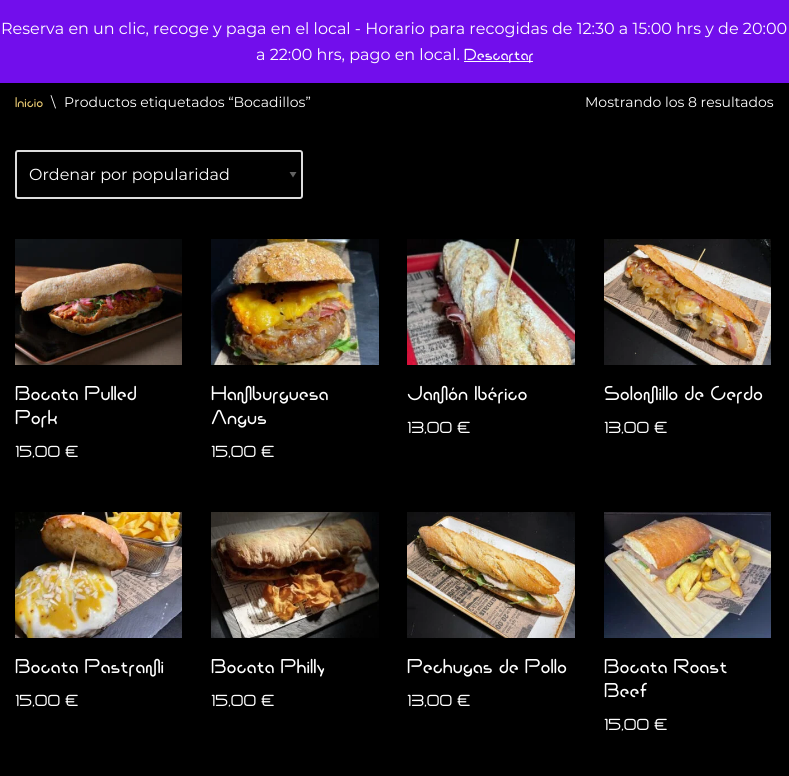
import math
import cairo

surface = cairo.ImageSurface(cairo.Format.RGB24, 789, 776)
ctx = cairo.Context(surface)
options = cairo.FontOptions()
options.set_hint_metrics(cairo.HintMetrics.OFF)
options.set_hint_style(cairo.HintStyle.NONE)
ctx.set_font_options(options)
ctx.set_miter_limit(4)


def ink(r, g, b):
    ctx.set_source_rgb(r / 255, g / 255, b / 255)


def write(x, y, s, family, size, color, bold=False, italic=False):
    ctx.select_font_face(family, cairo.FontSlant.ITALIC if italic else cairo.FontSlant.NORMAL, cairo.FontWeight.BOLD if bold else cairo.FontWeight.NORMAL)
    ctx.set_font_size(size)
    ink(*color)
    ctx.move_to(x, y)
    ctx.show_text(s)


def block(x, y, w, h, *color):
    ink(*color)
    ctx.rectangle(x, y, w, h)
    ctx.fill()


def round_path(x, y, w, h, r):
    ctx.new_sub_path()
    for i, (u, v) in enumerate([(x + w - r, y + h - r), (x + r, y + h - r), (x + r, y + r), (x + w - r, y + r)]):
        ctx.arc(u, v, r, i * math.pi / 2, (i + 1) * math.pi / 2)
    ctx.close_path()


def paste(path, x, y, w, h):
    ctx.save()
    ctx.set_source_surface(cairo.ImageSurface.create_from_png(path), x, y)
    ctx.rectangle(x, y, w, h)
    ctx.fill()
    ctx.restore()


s1 = dict(family="Montserrat", size=16, color=(255, 255, 255))
s2 = dict(family="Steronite", size=16, color=(255, 255, 255))
s3 = dict(family="Steronite", size=14, color=(234, 203, 114))
s4 = dict(family="Montserrat", size=14, color=(255, 255, 255))
s5 = dict(family="Steronite", size=20, color=(255, 255, 255))

ink(0, 0, 0)
ctx.paint()
block(0, 0, 789, 83, 114, 14, 236)
write(1, 34, "Reserva en un clic, recoge y paga en el local - Horario para recogidas de 12:30 a 15:00 hrs y de 20:00", **s1)
write(256, 60, "a 22:00 hrs, pago en local.", **s1)
block(464, 61, 69, 1, 252, 251, 254)
write(464, 60, "Descartar", **s2)
write(15, 107, "Inicio", **s3)
write(51, 107, "\\", **s4)
write(64, 107, "Productos etiquetados “Bocadillos”", **s4)
write(585, 107, "Mostrando los 8 resultados", **s4)
ink(98, 98, 98)
ctx.new_path()
ctx.move_to(296.5, 172)
ctx.line_to(293, 177.5)
ctx.line_to(289.5, 172)
ctx.close_path()
ctx.fill()
round_path(16, 151, 286, 47, 2)
ink(221, 221, 221)
ctx.stroke()
write(29, 180, "Ordenar por popularidad", **s1)
paste("pic1.png", 15, 239, 167, 126)
write(15, 400, "Bocata Pulled", **s5)
write(15, 424, "Pork", **s5)
write(15, 457, "15,00 €", **s2)
paste("pic2.png", 211, 239, 168, 126)
write(211, 400, "Hamburguesa", **s5)
write(211, 424, "Angus", **s5)
write(211, 457, "15,00 €", **s2)
paste("pic3.png", 407, 239, 168, 126)
write(407, 400, "Jamón Ibérico", **s5)
write(407, 433, "13,00 €", **s2)
paste("pic4.png", 604, 239, 167, 126)
write(604, 400, "Solomillo de Cerdo", **s5)
write(604, 433, "13,00 €", **s2)
paste("pic5.png", 15, 512, 167, 126)
write(15, 673, "Bocata Pastrami", **s5)
write(15, 706, "15,00 €", **s2)
paste("pic6.png", 211, 512, 168, 126)
write(211, 673, "Bocata Philly", **s5)
write(211, 706, "15,00 €", **s2)
paste("pic7.png", 407, 512, 168, 126)
write(407, 673, "Pechugas de Pollo", **s5)
write(407, 706, "13,00 €", **s2)
paste("pic8.png", 604, 512, 167, 126)
write(604, 673, "Bocata Roast", **s5)
write(604, 697, "Beef", **s5)
write(604, 730, "15,00 €", **s2)
surface.write_to_png("screenshot.png")
